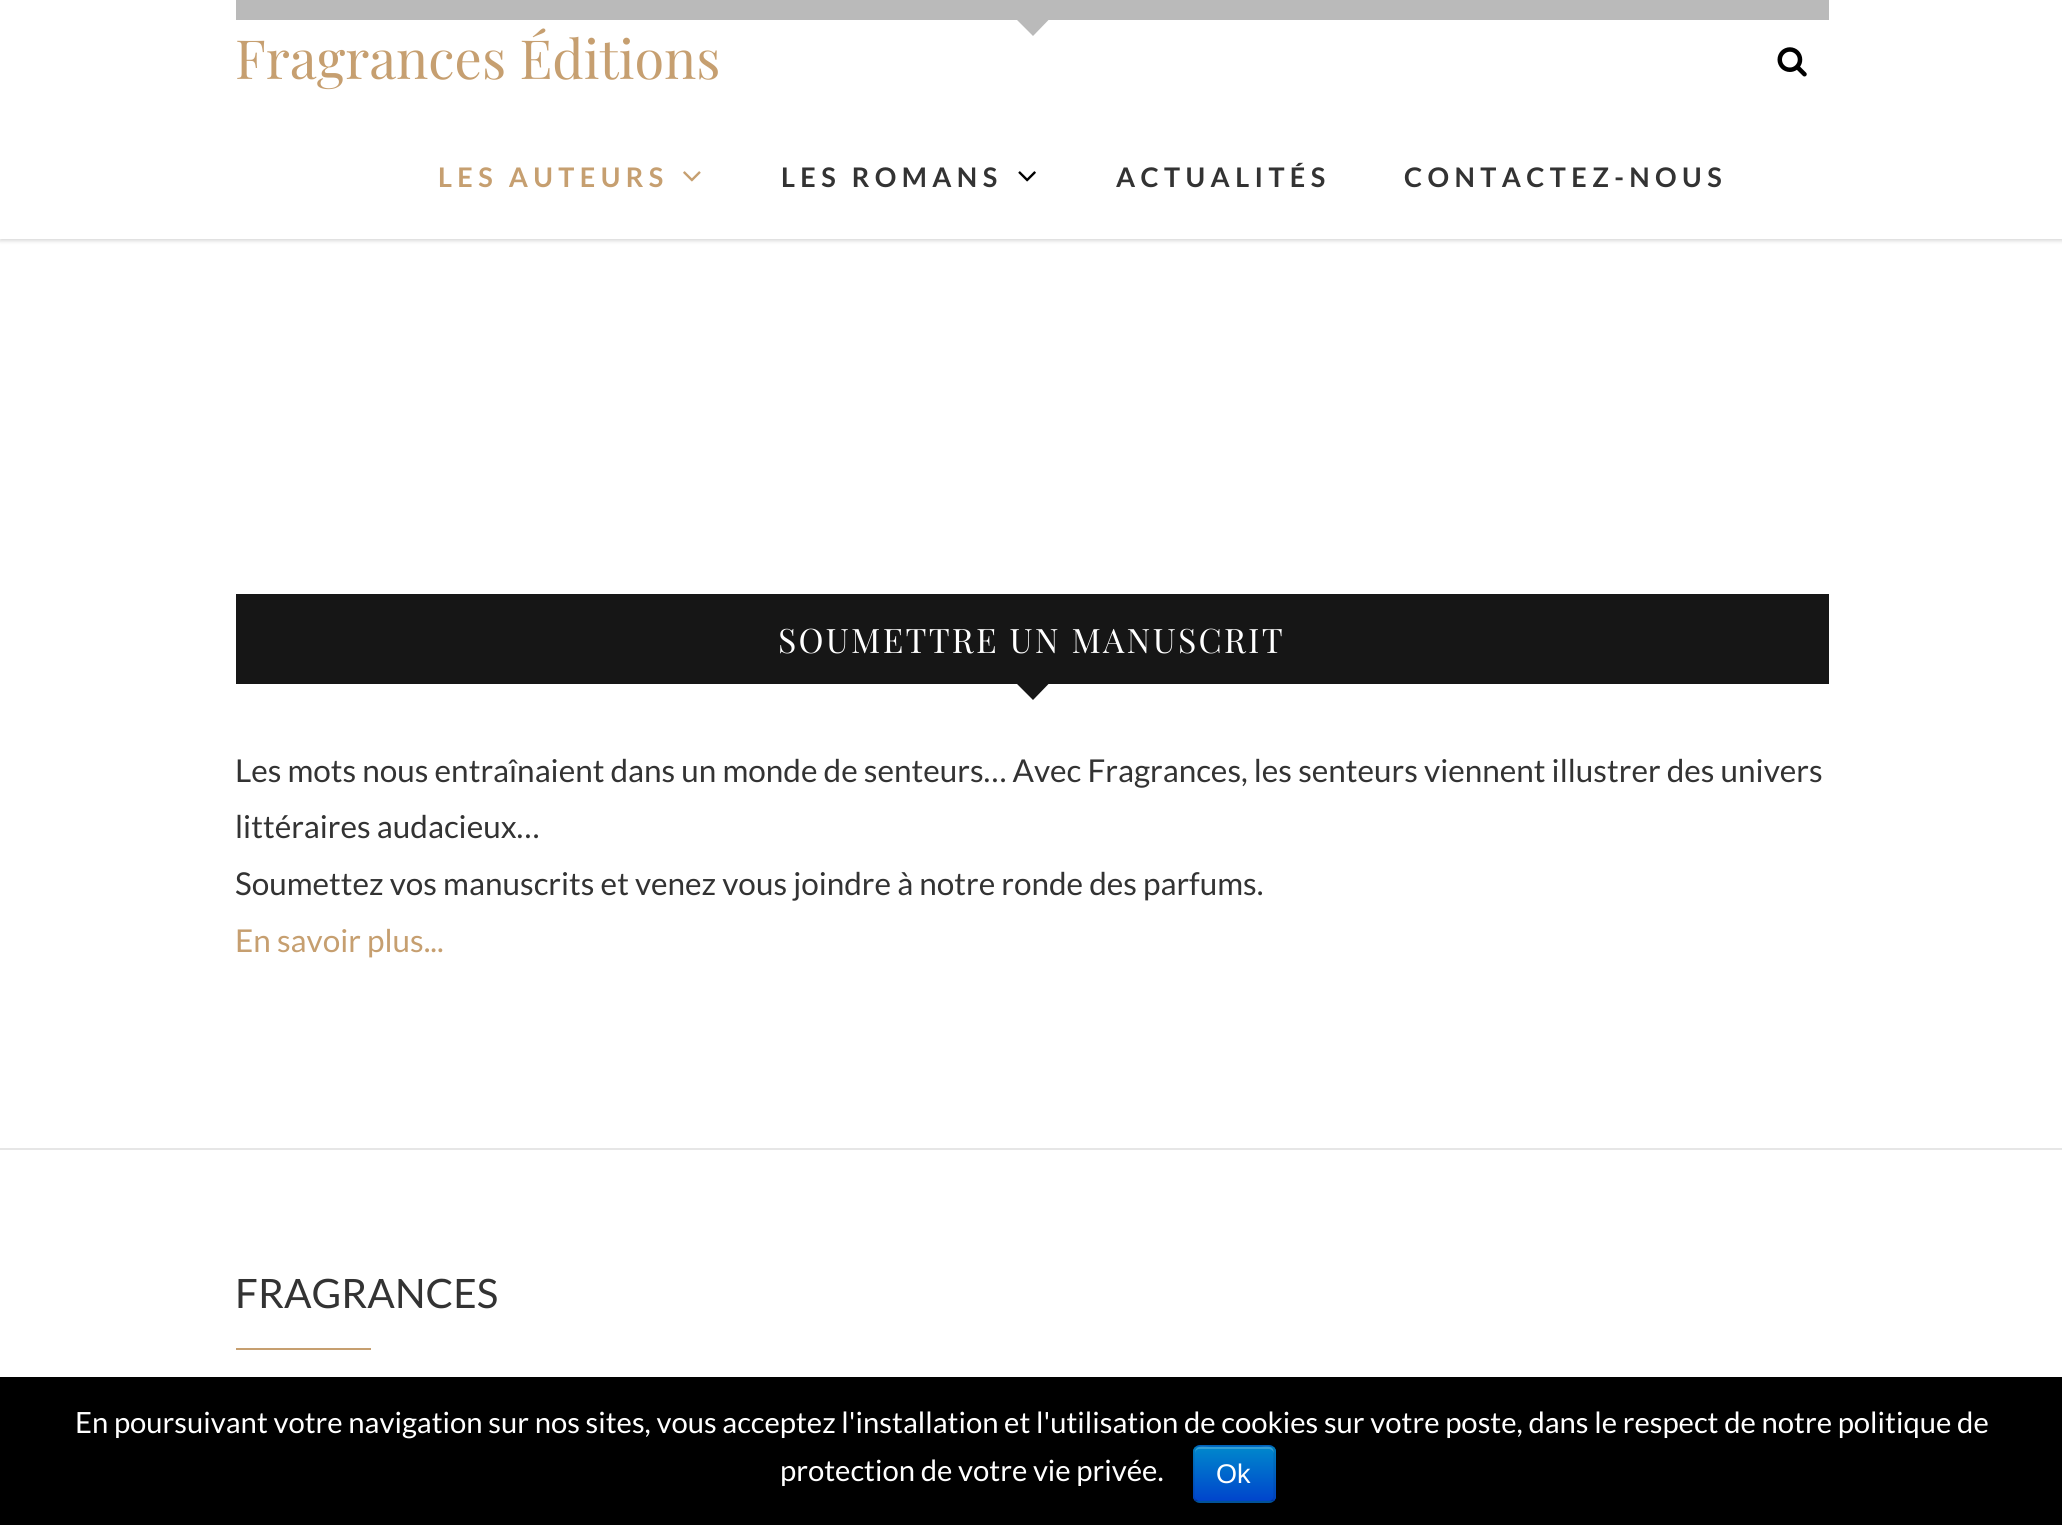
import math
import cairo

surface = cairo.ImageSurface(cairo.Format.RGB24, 2062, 1525)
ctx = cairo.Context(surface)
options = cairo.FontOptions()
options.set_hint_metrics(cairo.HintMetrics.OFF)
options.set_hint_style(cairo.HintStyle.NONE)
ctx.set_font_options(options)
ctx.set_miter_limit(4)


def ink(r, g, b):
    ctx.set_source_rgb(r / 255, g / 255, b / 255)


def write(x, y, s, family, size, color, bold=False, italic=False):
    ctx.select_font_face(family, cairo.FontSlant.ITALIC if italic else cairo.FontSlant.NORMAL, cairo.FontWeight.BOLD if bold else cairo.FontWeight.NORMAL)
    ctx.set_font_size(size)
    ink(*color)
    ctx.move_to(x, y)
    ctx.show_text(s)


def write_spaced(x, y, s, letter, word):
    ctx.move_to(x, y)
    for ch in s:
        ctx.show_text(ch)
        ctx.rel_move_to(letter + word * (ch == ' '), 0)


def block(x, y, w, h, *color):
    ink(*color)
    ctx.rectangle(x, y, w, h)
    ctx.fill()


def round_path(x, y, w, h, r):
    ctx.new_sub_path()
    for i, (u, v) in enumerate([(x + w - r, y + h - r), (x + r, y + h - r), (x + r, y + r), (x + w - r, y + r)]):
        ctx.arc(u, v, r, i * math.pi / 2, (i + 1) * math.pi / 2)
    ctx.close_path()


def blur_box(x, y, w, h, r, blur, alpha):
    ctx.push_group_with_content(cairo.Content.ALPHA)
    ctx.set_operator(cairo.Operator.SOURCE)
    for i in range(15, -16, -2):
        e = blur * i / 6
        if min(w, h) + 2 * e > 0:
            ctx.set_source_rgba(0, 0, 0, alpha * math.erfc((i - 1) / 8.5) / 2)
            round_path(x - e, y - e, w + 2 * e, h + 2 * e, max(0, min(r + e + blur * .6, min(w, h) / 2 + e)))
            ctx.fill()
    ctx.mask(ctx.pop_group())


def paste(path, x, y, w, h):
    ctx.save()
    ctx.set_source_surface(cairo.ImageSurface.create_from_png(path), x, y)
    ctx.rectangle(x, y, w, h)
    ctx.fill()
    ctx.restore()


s1 = dict(family="Playfair Display", size=54, color=(198, 159, 112))
s2 = dict(family="Lato", size=31.5, color=(51, 51, 51))
s3 = dict(family="Lato", size=31.5, color=(198, 159, 112))
s4 = dict(family="Lato", size=40.5, color=(51, 51, 51))
s5 = dict(family="Lato", size=29.25, color=(255, 255, 255))
s6 = dict(family="Liberation Sans", size=27, color=(255, 255, 255))

ink(255, 255, 255)
ctx.paint()
block(236, 0, 1593, 20, 22, 22, 22)
ctx.new_path()
ctx.move_to(1017, 20)
ctx.line_to(1048.5, 20)
ctx.line_to(1033, 36)
ctx.close_path()
ctx.fill()
ctx.save()
ctx.set_fill_rule(cairo.FillRule.EVEN_ODD)
ctx.new_path()
ctx.move_to(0, 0)
ctx.line_to(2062, 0)
ctx.line_to(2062, 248)
ctx.line_to(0, 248)
ctx.close_path()
ctx.move_to(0, 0)
ctx.line_to(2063, 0)
ctx.line_to(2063, 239)
ctx.line_to(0, 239)
ctx.close_path()
ctx.clip()
ink(0, 0, 0)
blur_box(0, 2, 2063, 239, 0, 2, 0.15)
ctx.restore()
ctx.set_source_rgba(1, 1, 1, 0.7)
ctx.rectangle(0, 0, 2062, 239)
ctx.fill()
write(235, 79, "Fragrances Éditions", **s1)
paste("pic1.png", 1777, 47, 30, 30)
ctx.select_font_face("Lato", cairo.FontSlant.NORMAL, cairo.FontWeight.BOLD)
ctx.set_font_size(27)
write_spaced(438, 187, "LES AUTEURS", 5.4, 0)
paste("pic2.png", 683, 171, 18, 11)
ink(51, 51, 51)
write_spaced(781, 187, "LES ROMANS", 5.4, 0)
paste("pic3.png", 1018, 171, 18, 11)
write_spaced(1116, 187, "ACTUALITÉS", 5.4, 0)
write_spaced(1404, 187, "CONTACTEZ-NOUS", 5.4, 0)
block(236, 594, 1593, 90, 22, 22, 22)
ctx.select_font_face("Playfair Display")
ctx.set_font_size(33.75)
ink(255, 255, 255)
write_spaced(778, 653, "SOUMETTRE UN MANUSCRIT", 2.25, 0)
ink(22, 22, 22)
ctx.new_path()
ctx.move_to(1017, 684)
ctx.line_to(1048.5, 684)
ctx.line_to(1033, 700)
ctx.close_path()
ctx.fill()
write(235, 782, "Les mots nous entraînaient dans un monde de senteurs… Avec Fragrances, les senteurs viennent illustrer des univers", **s2)
write(235, 838, "littéraires audacieux…", **s2)
write(235, 895, "Soumettez vos manuscrits et venez vous joindre à notre ronde des parfums.", **s2)
write(235, 952, "En savoir plus...", **s3)
block(0, 1148, 2062, 2, 230, 230, 230)
write(235, 1308, "FRAGRANCES", **s4)
block(236, 1348, 135, 2, 198, 159, 112)
block(0, 1377, 2062, 148, 0, 0, 0)
write(75, 1433, "En poursuivant votre navigation sur nos sites, vous acceptez l'installation et l'utilisation de cookies sur votre poste, dans le respect de notre politique de", **s5)
write(780, 1481, "protection de votre vie privée.", **s5)
ink(0, 109, 204)
round_path(1193, 1445, 83, 58, 7)
ctx.fill()
ctx.save()
round_path(1193, 1445, 83, 58, 7)
ctx.clip()
gradient = cairo.LinearGradient(1234, 1447, 1234, 1501)
gradient.add_color_stop_rgba(0, 0, 0.533, 0.8, 1)
gradient.add_color_stop_rgba(1, 0, 0.267, 0.8, 1)
ctx.set_source(gradient)
ctx.rectangle(1193, 1447, 83, 54)
ctx.fill()
ctx.restore()
ctx.set_source_rgba(1, 1, 1, 0.2)
ctx.new_path()
ctx.move_to(1199, 1449)
ctx.line_to(1269, 1449)
ctx.curve_to(1271, 1449, 1274, 1451, 1274, 1454)
ctx.curve_to(1274, 1444, 1266, 1447, 1258, 1447)
ctx.line_to(1212, 1447)
ctx.curve_to(1203, 1447, 1195, 1444, 1195, 1454)
ctx.curve_to(1195, 1451, 1197, 1449, 1199, 1449)
ctx.close_path()
ctx.fill()
ctx.new_path()
ctx.move_to(1273, 1500)
ctx.curve_to(1272, 1501.5, 1270.5, 1502, 1269, 1502)
ctx.line_to(1199, 1502)
ctx.curve_to(1198, 1502, 1196.5, 1501.5, 1195.5, 1500)
ctx.set_source_rgba(0, 0, 0, 0.25)
ctx.set_line_width(2.2)
ctx.stroke()
ctx.new_path()
ctx.move_to(1195.5, 1500)
ctx.curve_to(1194, 1499, 1193.5, 1497.5, 1193.5, 1496)
ctx.line_to(1193.5, 1451)
ctx.curve_to(1193.5, 1450, 1194, 1448.5, 1195.5, 1447.5)
ctx.curve_to(1196.5, 1446, 1198, 1445.5, 1199, 1445.5)
ctx.line_to(1269, 1445.5)
ctx.curve_to(1270.5, 1445.5, 1272, 1446, 1273, 1447.5)
ctx.curve_to(1274, 1448.5, 1274.5, 1450, 1274.5, 1451)
ctx.line_to(1274.5, 1496)
ctx.curve_to(1274.5, 1497.5, 1274, 1499, 1273, 1500)
ctx.set_source_rgba(0, 0, 0, 0.1)
ctx.stroke()
write(1216, 1483, "Ok", **s6)
surface.write_to_png("screenshot.png")
